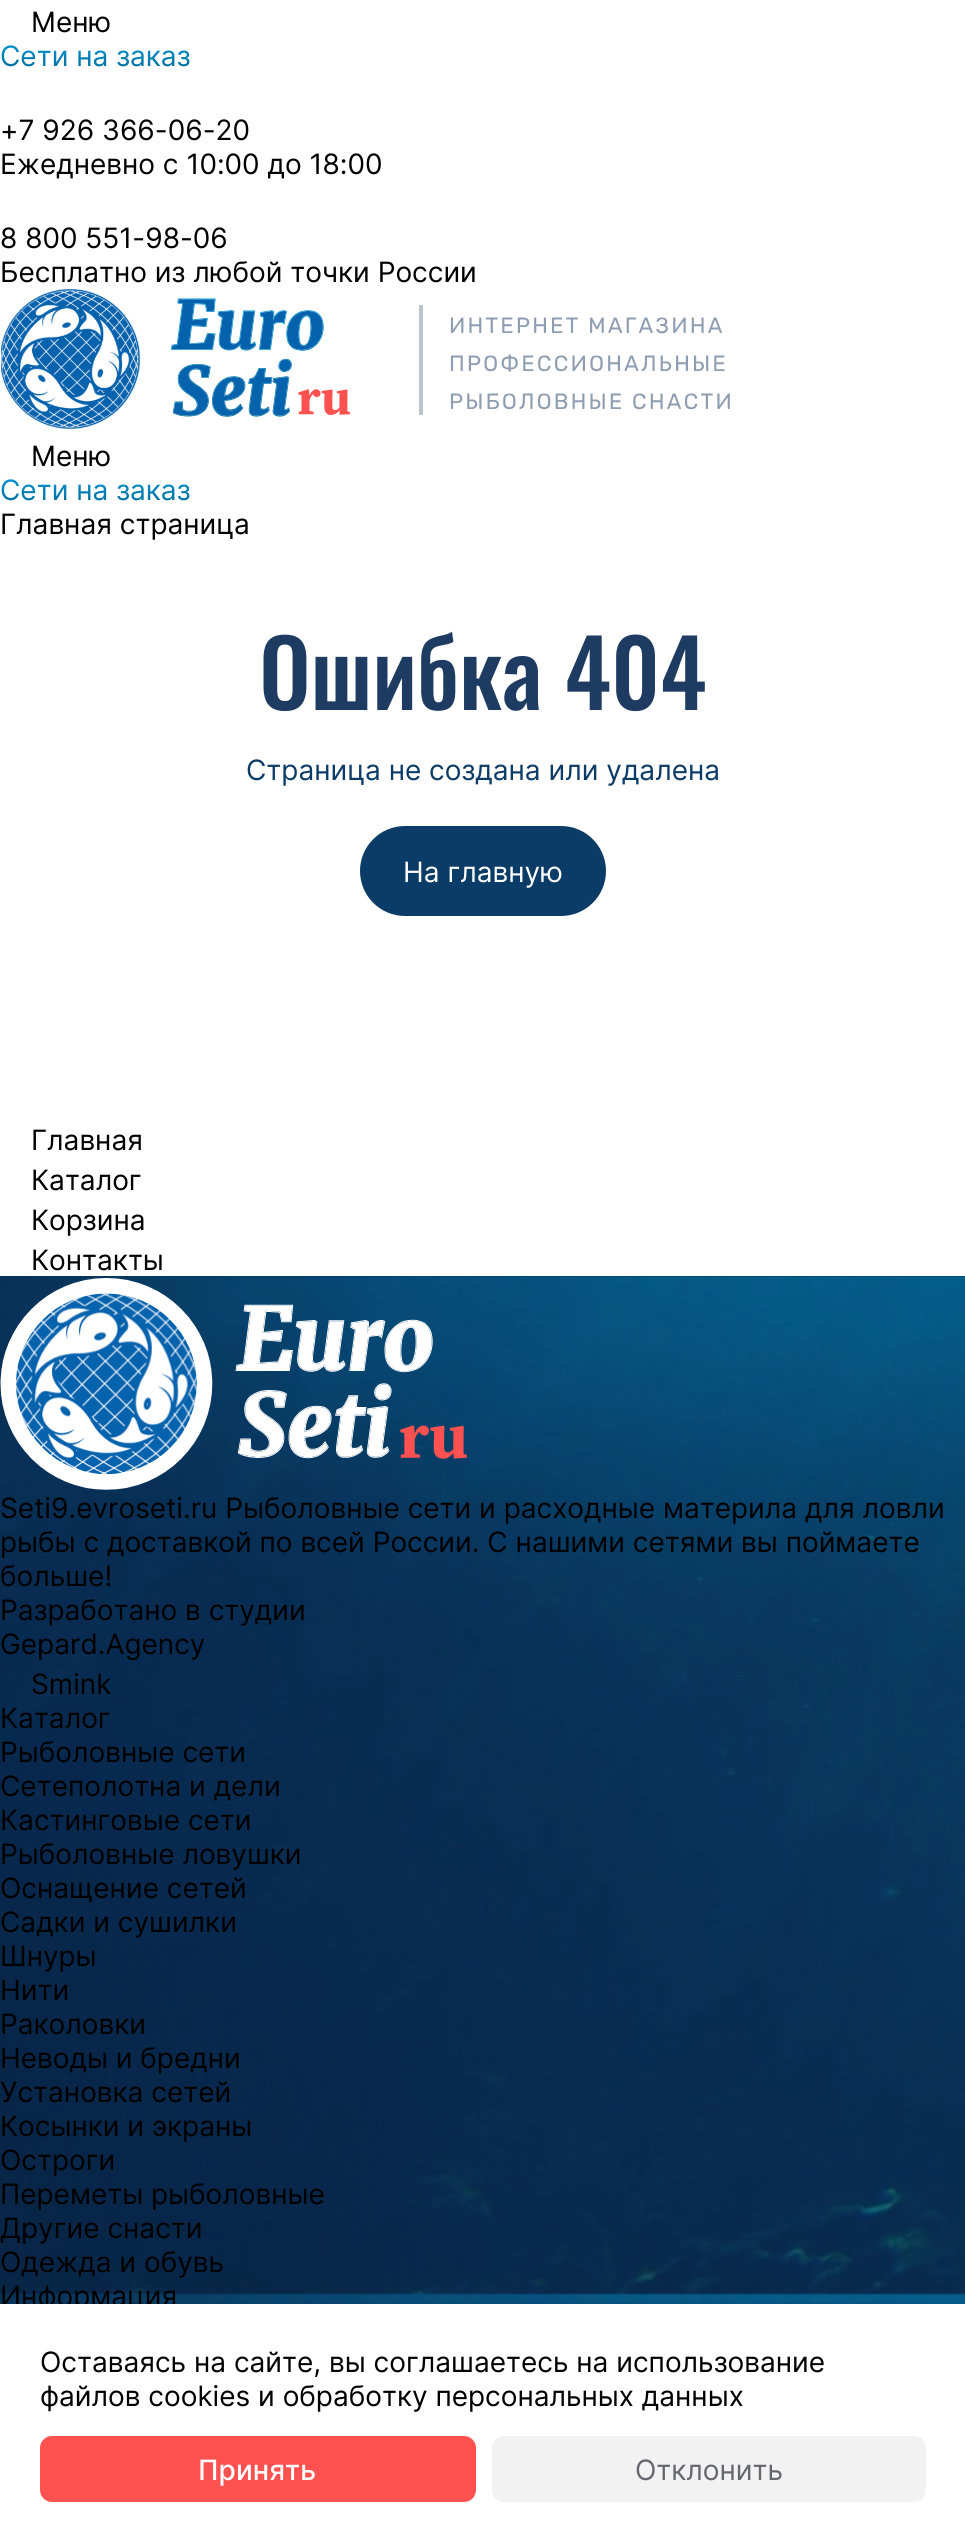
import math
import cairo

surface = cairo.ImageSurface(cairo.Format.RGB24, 965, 2542)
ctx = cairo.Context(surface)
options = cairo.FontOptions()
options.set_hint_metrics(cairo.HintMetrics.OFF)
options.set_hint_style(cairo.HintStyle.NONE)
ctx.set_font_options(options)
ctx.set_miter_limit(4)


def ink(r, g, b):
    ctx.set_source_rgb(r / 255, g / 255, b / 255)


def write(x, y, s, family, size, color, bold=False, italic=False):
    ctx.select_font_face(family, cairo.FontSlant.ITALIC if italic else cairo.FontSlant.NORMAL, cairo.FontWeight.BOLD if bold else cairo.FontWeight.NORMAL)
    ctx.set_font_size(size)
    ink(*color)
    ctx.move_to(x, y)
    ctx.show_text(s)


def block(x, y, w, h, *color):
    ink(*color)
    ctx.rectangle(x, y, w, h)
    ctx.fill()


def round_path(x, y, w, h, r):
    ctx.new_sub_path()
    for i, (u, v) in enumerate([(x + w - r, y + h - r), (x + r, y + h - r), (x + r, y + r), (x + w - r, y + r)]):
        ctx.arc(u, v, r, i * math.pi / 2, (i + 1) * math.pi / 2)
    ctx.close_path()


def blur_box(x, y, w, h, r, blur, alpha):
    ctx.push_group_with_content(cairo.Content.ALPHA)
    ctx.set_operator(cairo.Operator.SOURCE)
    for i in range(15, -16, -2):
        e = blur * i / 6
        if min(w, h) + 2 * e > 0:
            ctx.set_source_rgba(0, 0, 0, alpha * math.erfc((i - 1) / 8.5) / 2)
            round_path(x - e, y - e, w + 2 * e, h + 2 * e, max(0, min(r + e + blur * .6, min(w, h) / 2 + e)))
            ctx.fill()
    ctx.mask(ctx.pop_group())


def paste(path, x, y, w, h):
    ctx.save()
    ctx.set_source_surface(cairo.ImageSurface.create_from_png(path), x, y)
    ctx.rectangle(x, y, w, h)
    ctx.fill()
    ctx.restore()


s1 = dict(family="Inter", size=28, color=(0, 0, 0))
s2 = dict(family="Oswald Medium", size=92, color=(30, 60, 97))
s3 = dict(family="Inter", size=28, color=(11, 59, 103))
s4 = dict(family="Inter", size=28, color=(255, 255, 255))
s5 = dict(family="Inter Medium", size=28, color=(255, 255, 255))
s6 = dict(family="Inter", size=28, color=(100, 103, 109))

ink(255, 255, 255)
ctx.paint()
write(31, 32, "Меню", **s1)
gradient = cairo.LinearGradient(483, 38, 483, 72)
gradient.add_color_stop_rgba(0, 0, 0.604, 0.867, 1)
gradient.add_color_stop_rgba(1, 0, 0.416, 0.596, 1)
ctx.set_source(gradient)
ctx.move_to(0, 66)
ctx.show_text("Сети на заказ")
write(0, 140, "+7 926 366-06-20", **s1)
write(0, 174, "Ежедневно с 10:00 до 18:00", **s1)
write(0, 248, "8 800 551-98-06", **s1)
write(0, 282, "Бесплатно из любой точки России", **s1)
paste("pic1.png", 1, 289, 729, 140)
write(31, 466, "Меню", **s1)
gradient = cairo.LinearGradient(483, 472, 483, 506)
gradient.add_color_stop_rgba(0, 0, 0.604, 0.867, 1)
gradient.add_color_stop_rgba(1, 0, 0.416, 0.596, 1)
ctx.set_source(gradient)
ctx.move_to(0, 500)
ctx.show_text("Сети на заказ")
write(0, 534, "Главная страница", **s1)
write(259, 710, "Ошибка 404", **s2)
write(246, 780, "Страница не создана или удалена", **s3)
round_path(360, 826, 246, 90, 45)
ctx.fill()
write(403, 882, "На главную", **s4)
write(31, 1150, "Главная", **s1)
write(31, 1190, "Каталог", **s1)
write(31, 1230, "Корзина", **s1)
write(31, 1270, "Контакты", **s1)
paste("pic2.png", 0, 1276, 965, 1028)
paste("pic3.png", 0, 1278, 467, 212)
write(0, 1518, "Seti9.evroseti.ru Рыболовные сети и расходные материла для ловли", **s1)
write(0, 1552, "рыбы с доставкой по всей России. С нашими сетями вы поймаете", **s1)
write(0, 1586, "больше!", **s1)
write(0, 1620, "Разработано в студии", **s1)
write(0, 1654, "Gepard.Agency", **s1)
write(31, 1694, "Smink", **s1)
write(0, 1728, "Каталог", **s1)
write(0, 1762, "Рыболовные сети", **s1)
write(0, 1796, "Сетеполотна и дели", **s1)
write(0, 1830, "Кастинговые сети", **s1)
write(0, 1864, "Рыболовные ловушки", **s1)
write(0, 1898, "Оснащение сетей", **s1)
write(0, 1932, "Садки и сушилки", **s1)
write(0, 1966, "Шнуры", **s1)
write(0, 2000, "Нити", **s1)
write(0, 2034, "Раколовки", **s1)
write(0, 2068, "Неводы и бредни", **s1)
write(0, 2102, "Установка сетей", **s1)
write(0, 2136, "Косынки и экраны", **s1)
write(0, 2170, "Остроги", **s1)
write(0, 2204, "Переметы рыболовные", **s1)
write(0, 2238, "Другие снасти", **s1)
write(0, 2272, "Одежда и обувь", **s1)
write(0, 2306, "Информация", **s1)
ctx.rectangle(-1, 2303, 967, 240)
ctx.set_source_rgba(0.153, 0.169, 0.2, 0.04)
ctx.stroke()
ink(39, 43, 51)
blur_box(20, 2348, 926, 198, 0, 40, 0.2)
block(0, 2304, 965, 238, 255, 255, 255)
write(40, 2372, "Оставаясь на сайте, вы соглашаетесь на использование", **s1)
write(40, 2406, "файлов cookies и обработку персональных данных", **s1)
ink(255, 81, 79)
round_path(40, 2436, 436, 66, 12)
ctx.fill()
write(198, 2480, "Принять", **s5)
ink(242, 242, 243)
round_path(492, 2436, 434, 66, 12)
ctx.fill()
write(635, 2480, "Отклонить", **s6)
surface.write_to_png("screenshot.png")
